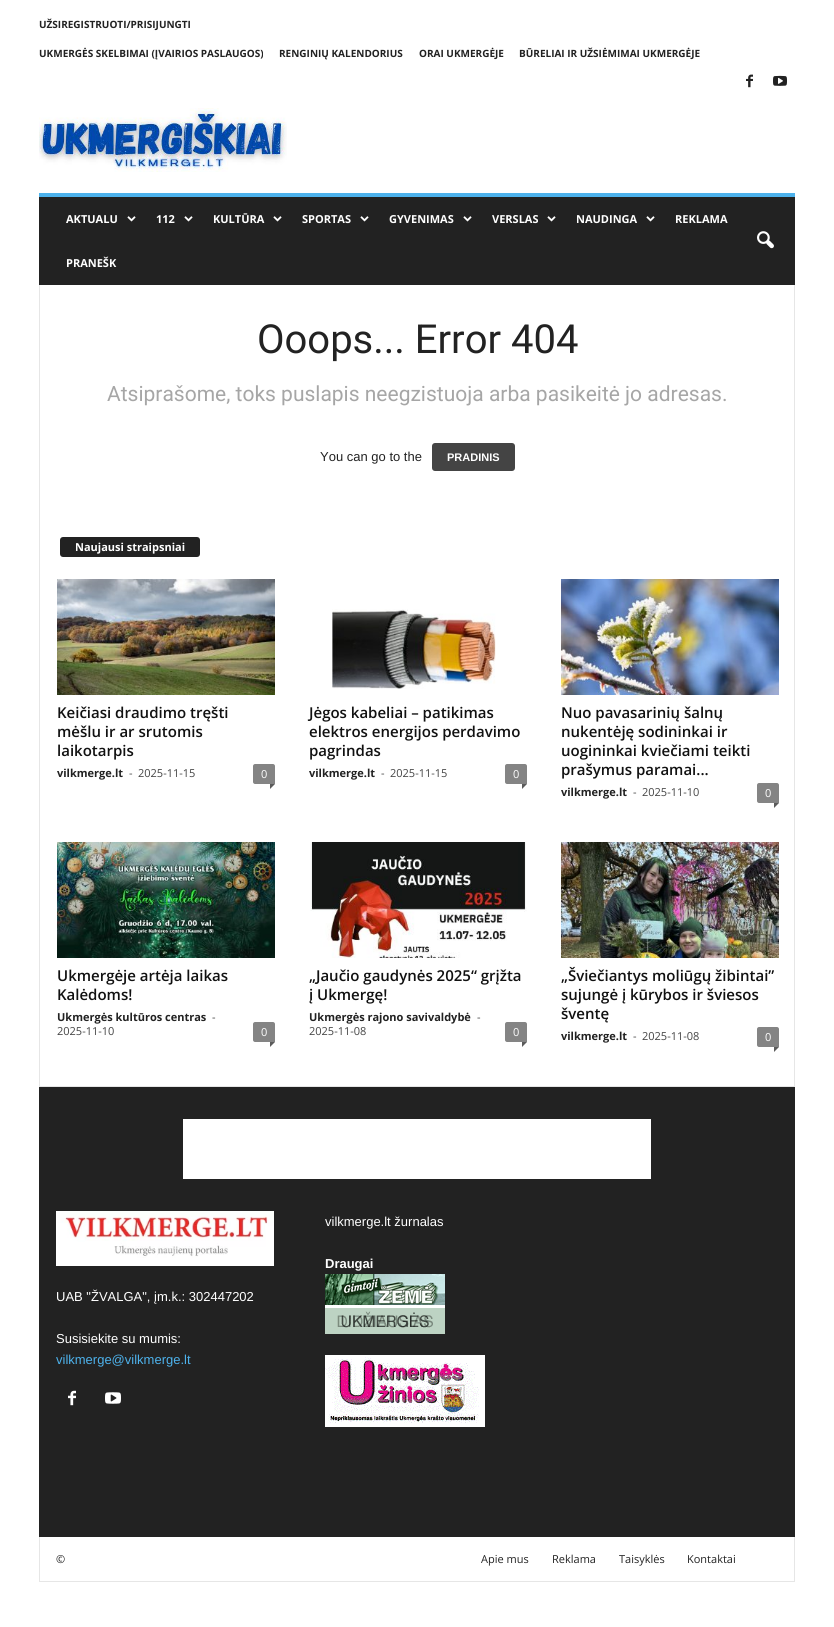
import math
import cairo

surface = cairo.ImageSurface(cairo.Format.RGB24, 834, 1627)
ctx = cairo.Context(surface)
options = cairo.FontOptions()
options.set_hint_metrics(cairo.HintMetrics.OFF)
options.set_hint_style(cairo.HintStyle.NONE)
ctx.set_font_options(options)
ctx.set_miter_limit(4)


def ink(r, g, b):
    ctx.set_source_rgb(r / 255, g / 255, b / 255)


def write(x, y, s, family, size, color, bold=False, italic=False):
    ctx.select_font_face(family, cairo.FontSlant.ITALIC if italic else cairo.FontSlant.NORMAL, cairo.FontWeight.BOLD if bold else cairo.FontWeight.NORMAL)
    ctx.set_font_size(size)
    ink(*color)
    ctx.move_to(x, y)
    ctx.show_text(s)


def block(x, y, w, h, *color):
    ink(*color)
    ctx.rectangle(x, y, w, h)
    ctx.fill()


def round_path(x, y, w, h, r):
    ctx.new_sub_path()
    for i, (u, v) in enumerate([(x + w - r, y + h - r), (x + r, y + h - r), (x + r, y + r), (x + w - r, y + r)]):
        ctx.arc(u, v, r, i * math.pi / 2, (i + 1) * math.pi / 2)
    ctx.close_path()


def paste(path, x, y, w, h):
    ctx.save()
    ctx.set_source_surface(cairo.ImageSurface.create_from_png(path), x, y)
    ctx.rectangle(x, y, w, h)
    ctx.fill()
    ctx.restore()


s1 = dict(family="Open Sans", size=10, color=(34, 34, 34), bold=True)
s2 = dict(family="Open Sans", size=11, color=(255, 255, 255), bold=True)
s3 = dict(family="Roboto", size=40, color=(34, 34, 34))
s4 = dict(family="Roboto", size=21, color=(166, 166, 166))
s5 = dict(family="Liberation Sans", size=13, color=(34, 34, 34))
s6 = dict(family="Liberation Sans", size=11, color=(255, 255, 255), bold=True)
s7 = dict(family="Open Sans SemiBold", size=15, color=(17, 17, 17))
s8 = dict(family="Open Sans", size=11, color=(34, 34, 34), bold=True)
s9 = dict(family="Open Sans", size=11, color=(68, 68, 68))
s10 = dict(family="Open Sans", size=11, color=(255, 255, 255))
s11 = dict(family="Liberation Sans", size=13, color=(255, 255, 255))
s12 = dict(family="Liberation Sans", size=13, color=(255, 255, 255), bold=True)
s13 = dict(family="Liberation Sans", size=13, color=(77, 178, 236))
s14 = dict(family="Open Sans", size=11, color=(34, 34, 34))

ink(255, 255, 255)
ctx.paint()
write(39, 28, "UŽSIREGISTRUOTI/PRISIJUNGTI", **s1)
write(39, 57, "UKMERGĖS SKELBIMAI (ĮVAIRIOS PASLAUGOS)", **s1)
write(279, 57, "RENGINIŲ KALENDORIUS", **s1)
write(419, 57, "ORAI UKMERGĖJE", **s1)
write(519, 57, "BŪRELIAI IR UŽSIĖMIMAI UKMERGĖJE", **s1)
paste("pic1.png", 746, 74, 7, 14)
paste("pic2.png", 773, 75, 14, 11)
paste("pic3.png", 39, 108, 248, 64)
block(39, 197, 756, 88, 34, 34, 34)
block(39, 193, 756, 4, 77, 178, 236)
write(66, 223, "AKTUALU", **s2)
paste("pic4.png", 127, 216, 9, 6)
write(156, 223, "112", **s2)
paste("pic4.png", 184, 216, 9, 6)
write(213, 223, "KULTŪRA", **s2)
paste("pic4.png", 273, 216, 9, 6)
write(302, 223, "SPORTAS", **s2)
paste("pic4.png", 360, 216, 9, 6)
write(389, 223, "GYVENIMAS", **s2)
paste("pic4.png", 463, 216, 9, 6)
write(492, 223, "VERSLAS", **s2)
paste("pic4.png", 547, 216, 9, 6)
write(576, 223, "NAUDINGA", **s2)
paste("pic4.png", 646, 216, 9, 6)
write(675, 223, "REKLAMA", **s2)
write(66, 267, "PRANEŠK", **s2)
paste("pic5.png", 757, 231, 17, 18)
block(39, 1086, 756, 1, 230, 230, 230)
block(39, 285, 1, 801, 230, 230, 230)
write(257, 353, "Ooops... Error 404", **s3)
write(107, 401, "Atsiprašome, toks puslapis neegzistuoja arba pasikeitė jo adresas.", **s4)
write(320, 461, "You can go to the", **s5)
ink(68, 68, 68)
round_path(432, 443, 83, 28, 3)
ctx.fill()
write(447, 461, "PRADINIS", **s6)
ink(34, 34, 34)
round_path(60, 537, 140, 20, 3)
ctx.fill()
write(75, 551, "Naujausi straipsniai", **s2)
paste("pic6.png", 57, 579, 218, 116)
write(57, 718, "Keičiasi draudimo tręšti", **s7)
write(57, 737, "mėšlu ir ar srutomis", **s7)
write(57, 756, "laikotarpis", **s7)
write(57, 777, "vilkmerge.lt", **s8)
write(129, 777, "-", **s9)
write(138, 777, "2025-11-15", **s9)
ink(132, 132, 132)
ctx.new_path()
ctx.move_to(255, 764)
ctx.line_to(273, 764)
ctx.curve_to(274, 764, 275, 765, 275, 766)
ctx.line_to(275, 784)
ctx.line_to(255, 784)
ctx.curve_to(254, 784, 253, 783, 253, 782)
ctx.line_to(253, 766)
ctx.curve_to(253, 765, 254, 764, 255, 764)
ctx.close_path()
ctx.fill()
write(261, 778, "0", **s10)
ink(91, 91, 91)
ctx.new_path()
ctx.move_to(270, 784)
ctx.line_to(275, 784)
ctx.line_to(270, 789)
ctx.close_path()
ctx.fill()
paste("pic7.png", 332, 609, 164, 80)
write(309, 718, "Jėgos kabeliai – patikimas", **s7)
write(309, 737, "elektros energijos perdavimo", **s7)
write(309, 756, "pagrindas", **s7)
write(309, 777, "vilkmerge.lt", **s8)
write(381, 777, "-", **s9)
write(390, 777, "2025-11-15", **s9)
ink(132, 132, 132)
ctx.new_path()
ctx.move_to(507, 764)
ctx.line_to(525, 764)
ctx.curve_to(526, 764, 527, 765, 527, 766)
ctx.line_to(527, 784)
ctx.line_to(507, 784)
ctx.curve_to(506, 784, 505, 783, 505, 782)
ctx.line_to(505, 766)
ctx.curve_to(505, 765, 506, 764, 507, 764)
ctx.close_path()
ctx.fill()
write(513, 778, "0", **s10)
ink(91, 91, 91)
ctx.new_path()
ctx.move_to(522, 784)
ctx.line_to(527, 784)
ctx.line_to(522, 789)
ctx.close_path()
ctx.fill()
paste("pic8.png", 561, 579, 218, 116)
write(561, 718, "Nuo pavasarinių šalnų", **s7)
write(561, 737, "nukentėję sodininkai ir", **s7)
write(561, 756, "uogininkai kviečiami teikti", **s7)
write(561, 775, "prašymus paramai...", **s7)
write(561, 796, "vilkmerge.lt", **s8)
write(633, 796, "-", **s9)
write(642, 796, "2025-11-10", **s9)
ink(132, 132, 132)
ctx.new_path()
ctx.move_to(759, 783)
ctx.line_to(777, 783)
ctx.curve_to(778, 783, 779, 784, 779, 785)
ctx.line_to(779, 803)
ctx.line_to(759, 803)
ctx.curve_to(758, 803, 757, 802, 757, 801)
ctx.line_to(757, 785)
ctx.curve_to(757, 784, 758, 783, 759, 783)
ctx.close_path()
ctx.fill()
write(765, 797, "0", **s10)
ink(91, 91, 91)
ctx.new_path()
ctx.move_to(774, 803)
ctx.line_to(779, 803)
ctx.line_to(774, 808)
ctx.close_path()
ctx.fill()
paste("pic9.png", 57, 842, 218, 116)
write(57, 981, "Ukmergėje artėja laikas", **s7)
write(57, 1000, "Kalėdoms!", **s7)
write(57, 1021, "Ukmergės kultūros centras", **s8)
write(212, 1021, "-", **s9)
write(57, 1035, "2025-11-10", **s9)
ink(132, 132, 132)
ctx.new_path()
ctx.move_to(255, 1022)
ctx.line_to(273, 1022)
ctx.curve_to(274, 1022, 275, 1023, 275, 1024)
ctx.line_to(275, 1042)
ctx.line_to(255, 1042)
ctx.curve_to(254, 1042, 253, 1041, 253, 1040)
ctx.line_to(253, 1024)
ctx.curve_to(253, 1023, 254, 1022, 255, 1022)
ctx.close_path()
ctx.fill()
write(261, 1036, "0", **s10)
ink(91, 91, 91)
ctx.new_path()
ctx.move_to(270, 1042)
ctx.line_to(275, 1042)
ctx.line_to(270, 1047)
ctx.close_path()
ctx.fill()
paste("pic10.png", 310, 842, 217, 116)
write(309, 981, "„Jaučio gaudynės 2025“ grįžta", **s7)
write(309, 1000, "į Ukmergę!", **s7)
write(309, 1021, "Ukmergės rajono savivaldybė", **s8)
write(477, 1021, "-", **s9)
write(309, 1035, "2025-11-08", **s9)
ink(132, 132, 132)
ctx.new_path()
ctx.move_to(507, 1022)
ctx.line_to(525, 1022)
ctx.curve_to(526, 1022, 527, 1023, 527, 1024)
ctx.line_to(527, 1042)
ctx.line_to(507, 1042)
ctx.curve_to(506, 1042, 505, 1041, 505, 1040)
ctx.line_to(505, 1024)
ctx.curve_to(505, 1023, 506, 1022, 507, 1022)
ctx.close_path()
ctx.fill()
write(513, 1036, "0", **s10)
ink(91, 91, 91)
ctx.new_path()
ctx.move_to(522, 1042)
ctx.line_to(527, 1042)
ctx.line_to(522, 1047)
ctx.close_path()
ctx.fill()
paste("pic11.png", 561, 842, 218, 116)
write(561, 981, "„Šviečiantys moliūgų žibintai”", **s7)
write(561, 1000, "sujungė į kūrybos ir šviesos", **s7)
write(561, 1019, "šventę", **s7)
write(561, 1040, "vilkmerge.lt", **s8)
write(633, 1040, "-", **s9)
write(642, 1040, "2025-11-08", **s9)
ink(132, 132, 132)
ctx.new_path()
ctx.move_to(759, 1027)
ctx.line_to(777, 1027)
ctx.curve_to(778, 1027, 779, 1028, 779, 1029)
ctx.line_to(779, 1047)
ctx.line_to(759, 1047)
ctx.curve_to(758, 1047, 757, 1046, 757, 1045)
ctx.line_to(757, 1029)
ctx.curve_to(757, 1028, 758, 1027, 759, 1027)
ctx.close_path()
ctx.fill()
write(765, 1041, "0", **s10)
ink(91, 91, 91)
ctx.new_path()
ctx.move_to(774, 1047)
ctx.line_to(779, 1047)
ctx.line_to(774, 1052)
ctx.close_path()
ctx.fill()
block(794, 285, 1, 801, 230, 230, 230)
block(39, 1087, 756, 450, 34, 34, 34)
block(183, 1119, 468, 60, 255, 255, 255)
write(325, 1226, "vilkmerge.lt žurnalas", **s11)
write(325, 1268, "Draugai", **s12)
paste("pic12.png", 325, 1274, 120, 60)
paste("pic13.png", 325, 1355, 160, 72)
paste("pic14.png", 56, 1211, 218, 55)
write(56, 1301, "UAB \"ŽVALGA\", įm.k.: 302447202", **s11)
write(56, 1343, "Susisiekite su mumis:", **s11)
write(56, 1364, "vilkmerge@vilkmerge.lt", **s13)
paste("pic15.png", 68, 1390, 8, 16)
paste("pic16.png", 105, 1392, 16, 12)
block(39, 1537, 1, 44, 230, 230, 230)
write(56, 1563, "©", **s14)
write(481, 1563, "Apie mus", **s14)
write(552, 1563, "Reklama", **s14)
write(619, 1563, "Taisyklės", **s14)
write(687, 1563, "Kontaktai", **s14)
block(794, 1537, 1, 44, 230, 230, 230)
block(39, 1581, 756, 1, 230, 230, 230)
surface.write_to_png("screenshot.png")
